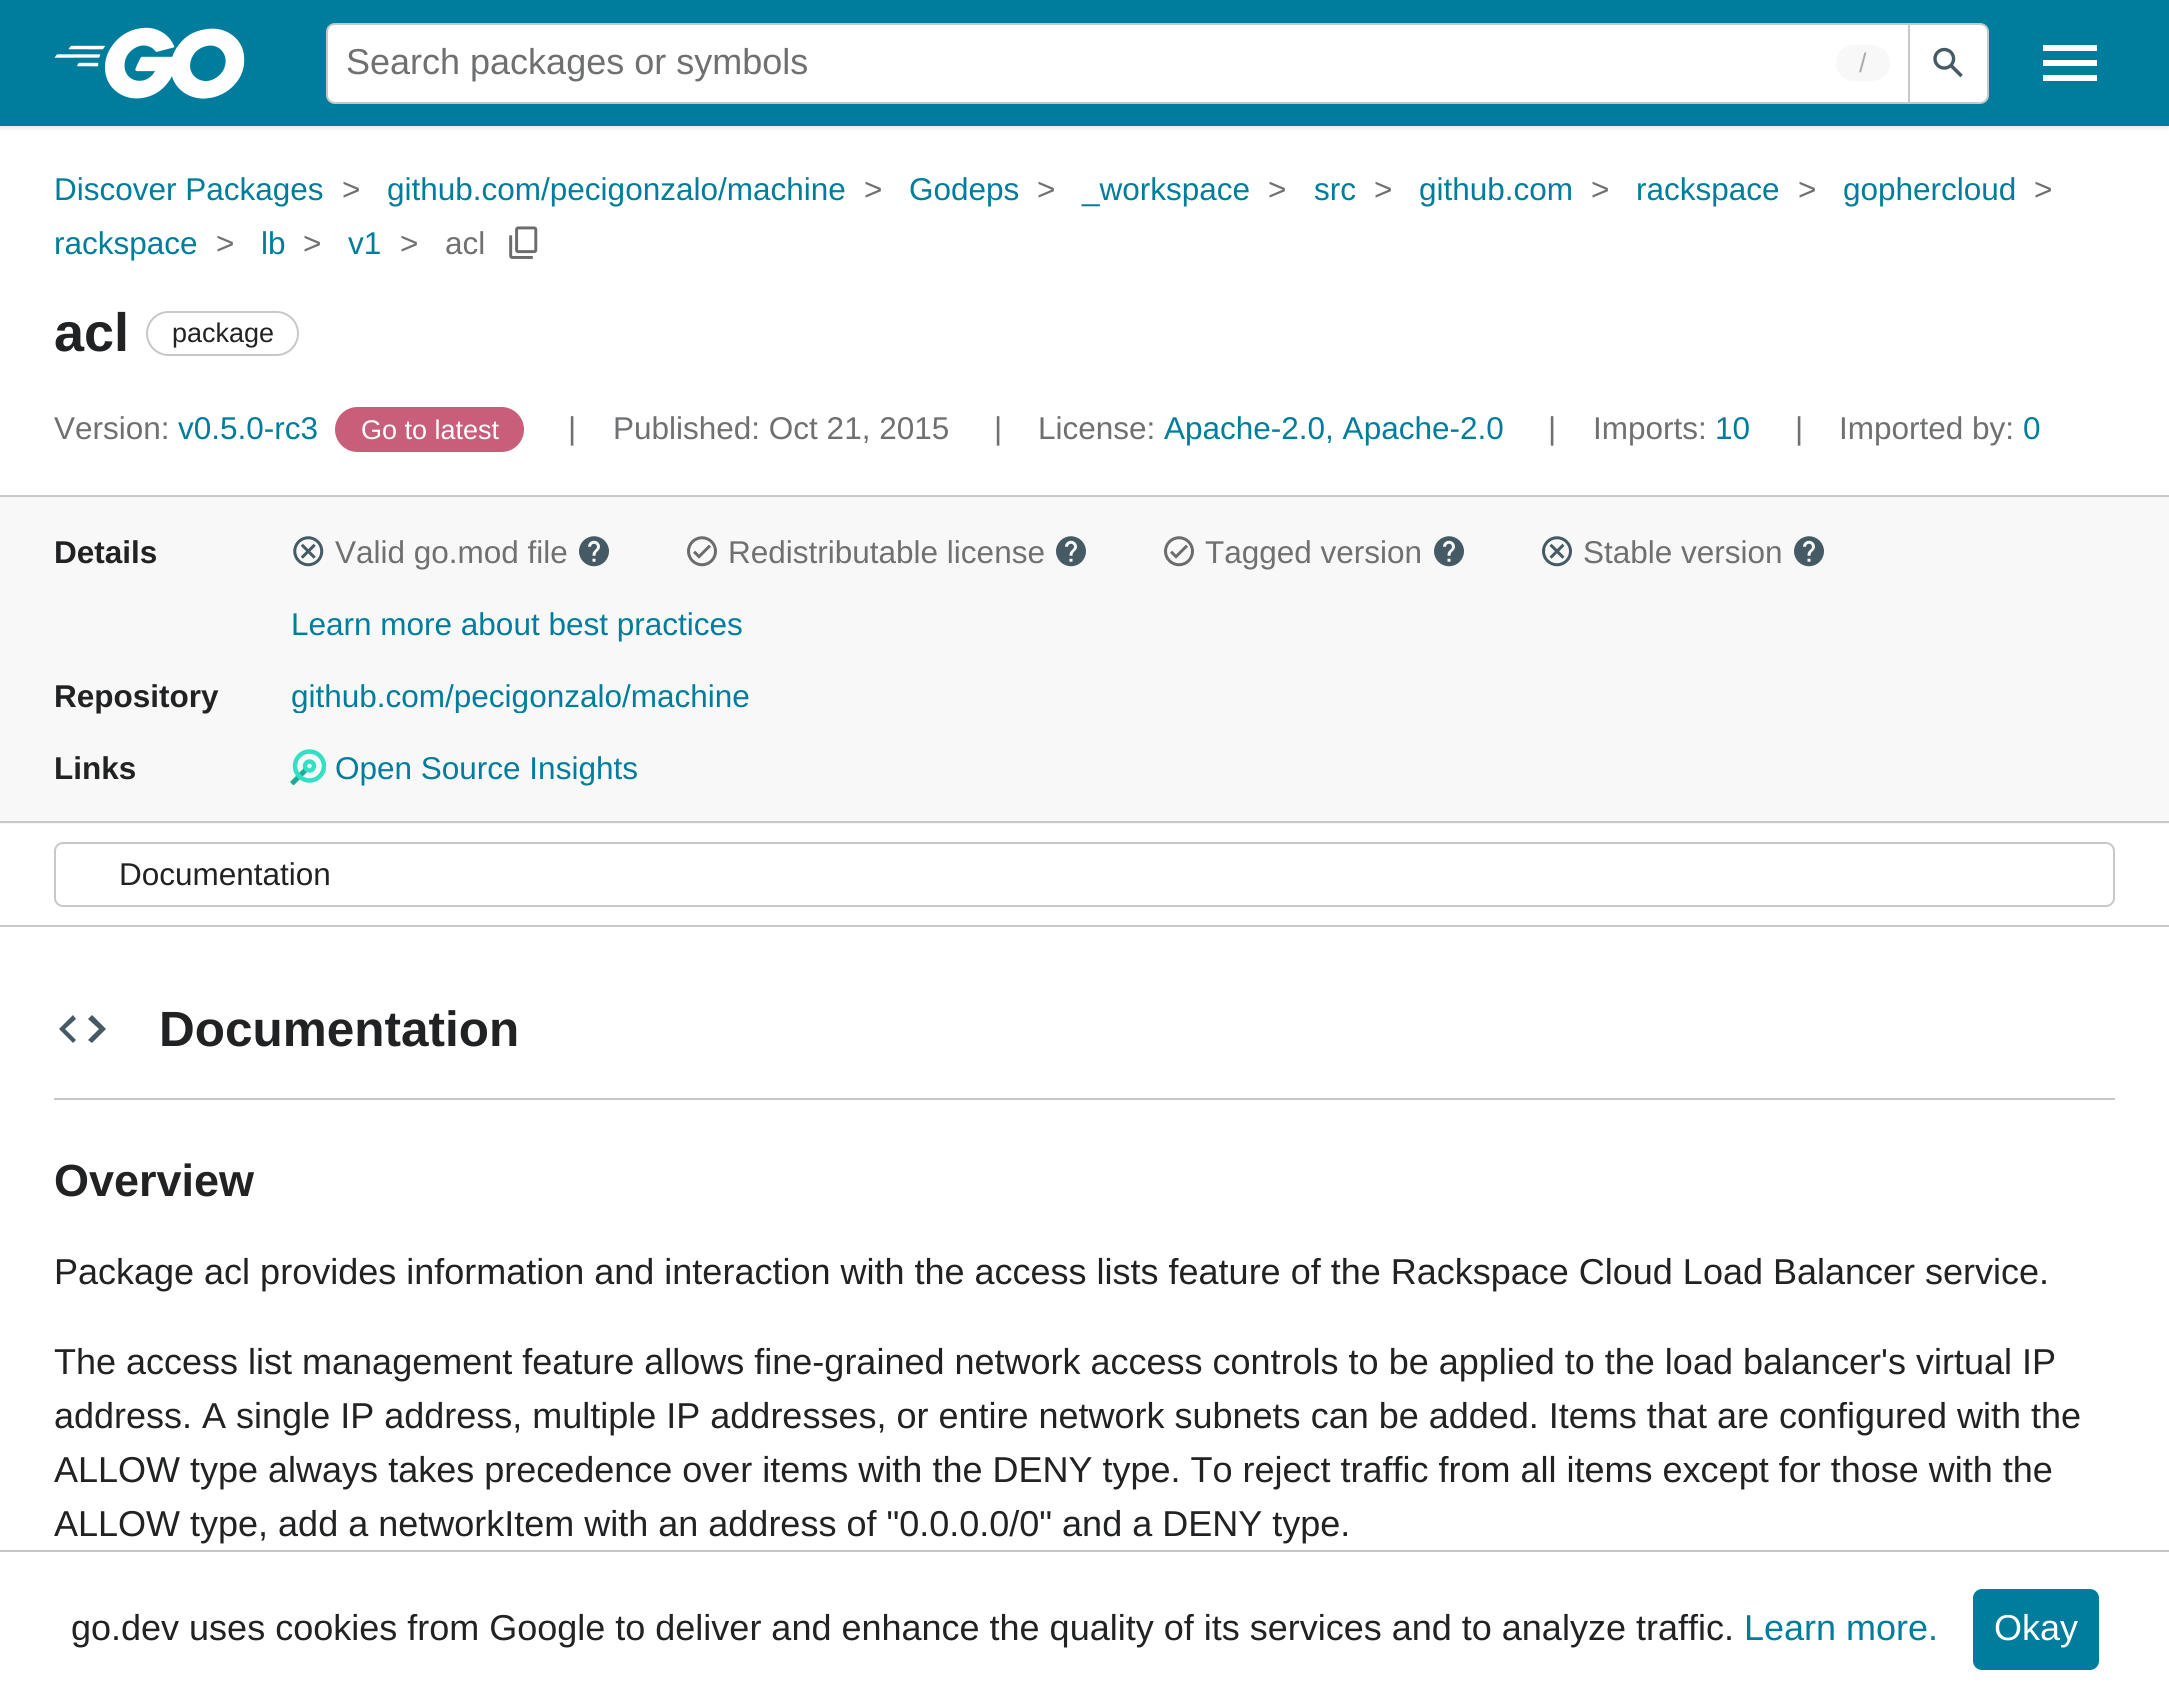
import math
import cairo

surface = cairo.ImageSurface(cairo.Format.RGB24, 2169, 1704)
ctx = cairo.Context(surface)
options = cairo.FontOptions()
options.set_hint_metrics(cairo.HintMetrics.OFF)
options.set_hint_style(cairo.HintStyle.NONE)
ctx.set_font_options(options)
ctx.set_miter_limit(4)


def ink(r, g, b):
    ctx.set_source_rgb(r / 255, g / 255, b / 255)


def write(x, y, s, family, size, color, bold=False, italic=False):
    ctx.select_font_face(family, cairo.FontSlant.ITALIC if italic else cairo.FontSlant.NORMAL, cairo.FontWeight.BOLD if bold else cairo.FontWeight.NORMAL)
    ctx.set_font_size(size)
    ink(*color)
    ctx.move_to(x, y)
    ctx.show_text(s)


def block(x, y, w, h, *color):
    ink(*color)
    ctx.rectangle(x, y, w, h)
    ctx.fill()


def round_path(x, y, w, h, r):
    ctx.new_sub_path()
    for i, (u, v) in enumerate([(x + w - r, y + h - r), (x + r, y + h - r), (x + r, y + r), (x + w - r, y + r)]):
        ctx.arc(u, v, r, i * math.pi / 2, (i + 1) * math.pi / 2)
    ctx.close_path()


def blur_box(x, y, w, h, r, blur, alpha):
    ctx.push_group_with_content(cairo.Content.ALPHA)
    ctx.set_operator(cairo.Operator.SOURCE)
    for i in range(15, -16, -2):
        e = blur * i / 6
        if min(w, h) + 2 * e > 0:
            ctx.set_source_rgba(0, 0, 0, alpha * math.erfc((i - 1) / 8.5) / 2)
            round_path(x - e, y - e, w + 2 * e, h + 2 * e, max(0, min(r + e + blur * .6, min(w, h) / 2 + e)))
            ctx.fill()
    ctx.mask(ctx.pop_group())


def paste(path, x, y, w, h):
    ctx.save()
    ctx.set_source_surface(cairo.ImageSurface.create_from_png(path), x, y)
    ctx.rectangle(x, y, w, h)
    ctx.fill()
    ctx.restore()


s1 = dict(family="Liberation Sans", size=36, color=(110, 112, 114))
s2 = dict(family="Liberation Sans", size=27, color=(170, 172, 174))
s3 = dict(family="Liberation Sans", size=31.5, color=(0, 125, 156))
s4 = dict(family="Liberation Sans", size=31.5, color=(110, 112, 114))
s5 = dict(family="Liberation Sans", size=54, color=(32, 34, 36), bold=True)
s6 = dict(family="Liberation Sans", size=27, color=(32, 34, 36))
s7 = dict(family="Liberation Sans", size=27, color=(255, 255, 255))
s8 = dict(family="Liberation Sans", size=31.5, color=(32, 34, 36), bold=True)
s9 = dict(family="Liberation Sans", size=31.5, color=(32, 34, 36))
s10 = dict(family="Liberation Sans", size=49.5, color=(32, 34, 36), bold=True)
s11 = dict(family="Liberation Sans", size=45, color=(32, 34, 36), bold=True)
s12 = dict(family="Liberation Sans", size=36, color=(32, 34, 36))
s13 = dict(family="Liberation Sans", size=36, color=(0, 125, 156))
s14 = dict(family="Liberation Sans", size=36, color=(255, 255, 255))

ink(255, 255, 255)
ctx.paint()
ink(171, 171, 171)
blur_box(0, 2, 2169, 126, 0, 2, 0.3)
block(0, 0, 2169, 126, 0, 125, 156)
paste("pic1.png", 54, 27, 191, 72)
ink(255, 255, 255)
ctx.new_path()
ctx.move_to(335, 24)
ctx.line_to(1909, 24)
ctx.line_to(1909, 103)
ctx.line_to(335, 103)
ctx.curve_to(330.5, 103, 327, 99.5, 327, 95)
ctx.line_to(327, 32)
ctx.curve_to(327, 27.5, 330.5, 24, 335, 24)
ctx.close_path()
ctx.fill_preserve()
ink(198, 200, 202)
ctx.stroke()
write(346, 74, "Search packages or symbols", **s1)
ink(248, 248, 248)
round_path(1836, 45, 54, 36, 18)
ctx.fill()
write(1859, 72, "/", **s2)
ink(255, 255, 255)
ctx.new_path()
ctx.move_to(1909, 24)
ctx.line_to(1980, 24)
ctx.curve_to(1984.5, 24, 1988, 27.5, 1988, 32)
ctx.line_to(1988, 95)
ctx.curve_to(1988, 99.5, 1984.5, 103, 1980, 103)
ctx.line_to(1909, 103)
ctx.close_path()
ctx.fill_preserve()
ink(198, 200, 202)
ctx.stroke()
paste("pic2.png", 1933, 47, 30, 31)
ink(255, 255, 255)
ctx.new_path()
ctx.move_to(2043, 81)
ctx.line_to(2097, 81)
ctx.line_to(2097, 75)
ctx.line_to(2043, 75)
ctx.close_path()
ctx.move_to(2043, 66)
ctx.line_to(2097, 66)
ctx.line_to(2097, 60)
ctx.line_to(2043, 60)
ctx.close_path()
ctx.move_to(2043, 45)
ctx.line_to(2043, 51)
ctx.line_to(2097, 51)
ctx.line_to(2097, 45)
ctx.close_path()
ctx.fill()
block(0, 495, 2169, 2, 198, 200, 202)
write(54, 200, "Discover Packages", **s3)
write(342, 200, ">", **s4)
write(387, 200, "github.com/pecigonzalo/machine", **s3)
write(864, 200, ">", **s4)
write(909, 200, "Godeps", **s3)
write(1037, 200, ">", **s4)
write(1082, 200, "_workspace", **s3)
write(1268, 200, ">", **s4)
write(1314, 200, "src", **s3)
write(1374, 200, ">", **s4)
write(1419, 200, "github.com", **s3)
write(1591, 200, ">", **s4)
write(1636, 200, "rackspace", **s3)
write(1798, 200, ">", **s4)
write(1843, 200, "gophercloud", **s3)
write(2034, 200, ">", **s4)
write(54, 254, "rackspace", **s3)
write(216, 254, ">", **s4)
write(261, 254, "lb", **s3)
write(303, 254, ">", **s4)
write(348, 254, "v1", **s3)
write(400, 254, ">", **s4)
write(445, 254, "acl", **s4)
paste("pic3.png", 509, 226, 29, 33)
write(54, 351, "acl", **s5)
round_path(147, 312, 151, 43, 21.5)
ink(198, 200, 202)
ctx.stroke()
write(172, 342, "package", **s6)
write(54, 439, "Version:", **s4)
write(178, 439, "v0.5.0-rc3", **s3)
ink(200, 94, 122)
round_path(336, 408, 187, 43, 21.5)
ctx.fill_preserve()
ctx.stroke()
write(361, 439, "Go to latest", **s7)
write(568, 439, "|", **s4)
write(613, 439, "Published: Oct 21, 2015", **s4)
write(994, 439, "|", **s4)
write(1038, 439, "License:", **s4)
write(1164, 439, "Apache-2.0, Apache-2.0", **s3)
write(1548, 439, "|", **s4)
write(1593, 439, "Imports:", **s4)
write(1715, 439, "10", **s3)
write(1795, 439, "|", **s4)
write(1839, 439, "Imported by:", **s4)
write(2023, 439, "0", **s3)
block(0, 497, 2169, 327, 248, 248, 248)
block(0, 821, 2169, 2, 198, 200, 202)
write(54, 563, "Details", **s8)
paste("pic4.png", 293, 536, 31, 31)
write(335, 563, "Valid go.mod file", **s4)
paste("pic5.png", 579, 536, 30, 31)
paste("pic6.png", 687, 536, 30, 31)
write(728, 563, "Redistributable license", **s4)
paste("pic5.png", 1056, 536, 30, 31)
paste("pic6.png", 1164, 536, 30, 31)
write(1205, 563, "Tagged version", **s4)
paste("pic5.png", 1434, 536, 30, 31)
paste("pic7.png", 1542, 536, 30, 31)
write(1583, 563, "Stable version", **s4)
paste("pic5.png", 1794, 536, 30, 31)
write(291, 635, "Learn more about best practices", **s3)
write(54, 707, "Repository", **s8)
ctx.save()
ctx.rectangle(290, 677, 459, 36)
ctx.clip()
write(291, 707, "github.com/pecigonzalo/machine", **s3)
ctx.restore()
write(54, 779, "Links", **s8)
paste("pic8.png", 290, 749, 36, 36)
write(335, 779, "Open Source Insights", **s3)
block(0, 925, 2169, 2, 198, 200, 202)
round_path(55, 843, 2059, 63, 8)
ctx.stroke()
write(119, 885, "Documentation", **s9)
block(54, 1098, 2061, 2, 198, 200, 202)
ink(69, 90, 100)
ctx.new_path()
ctx.move_to(92, 1015)
ctx.line_to(88, 1019)
ctx.line_to(99, 1029)
ctx.line_to(88, 1040)
ctx.line_to(92, 1043)
ctx.line_to(106, 1029)
ctx.close_path()
ctx.move_to(73, 1043)
ctx.line_to(76, 1040)
ctx.line_to(65, 1029)
ctx.line_to(76, 1019)
ctx.line_to(73, 1015)
ctx.line_to(59, 1029)
ctx.close_path()
ctx.fill()
write(159, 1046, "Documentation", **s10)
write(54, 1196, "Overview", **s11)
write(54, 1284, "Package acl provides information and interaction with the access lists feature of the Rackspace Cloud Load Balancer service.", **s12)
write(54, 1374, "The access list management feature allows fine-grained network access controls to be applied to the load balancer's virtual IP", **s12)
write(54, 1428, "address. A single IP address, multiple IP addresses, or entire network subnets can be added. Items that are configured with the", **s12)
write(54, 1482, "ALLOW type always takes precedence over items with the DENY type. To reject traffic from all items except for those with the", **s12)
write(54, 1536, "ALLOW type, add a networkItem with an address of \"0.0.0.0/0\" and a DENY type.", **s12)
block(0, 1550, 2169, 2, 198, 200, 202)
write(71, 1640, "go.dev uses cookies from Google to deliver and enhance the quality of its services and to analyze traffic.", **s12)
write(1744, 1640, "Learn more.", **s13)
round_path(1973, 1589, 126, 81, 9)
ctx.fill()
write(1994, 1640, "Okay", **s14)
surface.write_to_png("screenshot.png")
